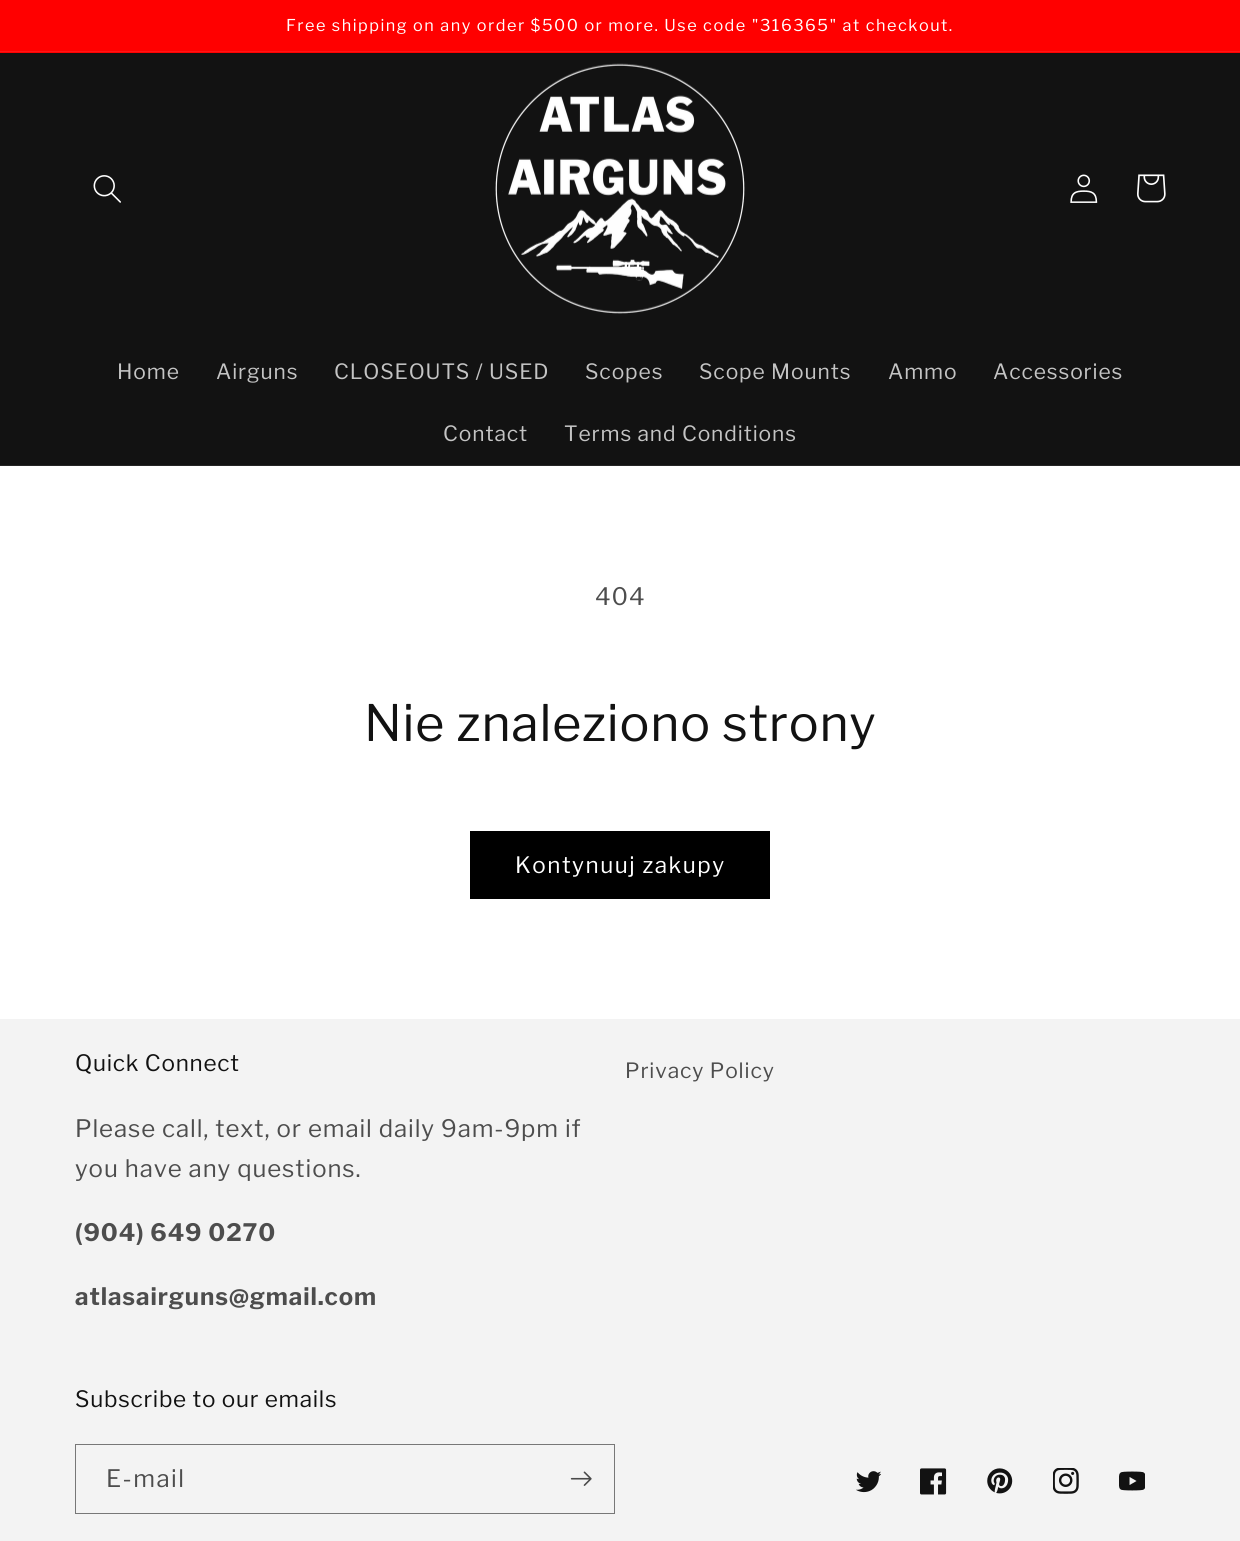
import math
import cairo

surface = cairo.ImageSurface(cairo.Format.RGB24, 1240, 1541)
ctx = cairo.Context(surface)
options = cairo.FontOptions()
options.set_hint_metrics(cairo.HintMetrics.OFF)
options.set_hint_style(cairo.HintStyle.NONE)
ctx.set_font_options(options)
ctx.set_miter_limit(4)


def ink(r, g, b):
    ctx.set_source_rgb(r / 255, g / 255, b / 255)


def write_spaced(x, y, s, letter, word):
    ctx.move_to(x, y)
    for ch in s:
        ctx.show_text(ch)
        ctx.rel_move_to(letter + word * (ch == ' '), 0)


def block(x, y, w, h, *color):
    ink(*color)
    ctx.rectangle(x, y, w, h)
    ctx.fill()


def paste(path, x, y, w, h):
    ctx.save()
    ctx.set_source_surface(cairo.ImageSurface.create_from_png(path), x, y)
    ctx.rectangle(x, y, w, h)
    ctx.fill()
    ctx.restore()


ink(255, 255, 255)
ctx.paint()
block(0, 0, 1240, 53, 255, 0, 0)
block(0, 51, 1240, 1, 255, 20, 20)
ctx.select_font_face("Libre Franklin")
ctx.set_font_size(16.25)
ink(255, 255, 255)
write_spaced(286, 31, "Free shipping on any order $500 or more. Use code \"316365\" at checkout.", 1.5, 0)
block(0, 53, 1240, 412, 18, 18, 18)
block(0, 465, 1240, 1, 37, 37, 37)
paste("pic1.png", 93, 175, 28, 28)
paste("pic2.png", 495, 63, 250, 251)
paste("pic3.png", 1070, 174, 28, 29)
paste("pic4.png", 1137, 174, 29, 29)
ctx.set_font_size(21)
ink(196, 196, 196)
write_spaced(117, 379, "Home", 0.9, 0)
write_spaced(216, 379, "Airguns", 0.9, 0)
write_spaced(334, 379, "CLOSEOUTS / USED", 0.9, 0)
write_spaced(585, 379, "Scopes", 0.9, 0)
write_spaced(699, 379, "Scope Mounts", 0.9, 0)
write_spaced(888, 379, "Ammo", 0.9, 0)
write_spaced(993, 379, "Accessories", 0.9, 0)
write_spaced(443, 441, "Contact", 0.9, 0)
write_spaced(564, 441, "Terms and Conditions", 0.9, 0)
ctx.set_font_size(24)
ink(77, 77, 77)
write_spaced(595, 605, "404", 0.9, 0)
ctx.set_font_size(50)
ink(18, 18, 18)
write_spaced(364, 741, "Nie znaleziono strony", 0.75, 0)
block(470, 831, 300, 68, 0, 0, 0)
ctx.set_font_size(22.5)
ink(255, 255, 255)
write_spaced(515, 873, "Kontynuuj zakupy", 1.5, 0)
block(0, 1019, 1240, 522, 243, 243, 243)
ink(18, 18, 18)
write_spaced(75, 1071, "Quick Connect", 0.75, 0)
ctx.set_font_size(24)
ink(77, 77, 77)
write_spaced(75, 1137, "Please call, text, or email daily 9am-9pm if", 0.9, 0)
write_spaced(75, 1177, "you have any questions.", 0.9, 0)
ctx.select_font_face("Libre Franklin", cairo.FontSlant.NORMAL, cairo.FontWeight.BOLD)
write_spaced(75, 1241, "(904) 649 0270", 0.9, 0)
write_spaced(75, 1305, "atlasairguns@gmail.com", 0.9, 0)
ctx.select_font_face("Libre Franklin")
ctx.set_font_size(21)
write_spaced(625, 1078, "Privacy Policy", 0.9, 0)
ctx.set_font_size(22.5)
ink(18, 18, 18)
write_spaced(75, 1407, "Subscribe to our emails", 0.75, 0)
ctx.rectangle(75.5, 1444.5, 539, 69)
ink(119, 119, 119)
ctx.set_line_width(1)
ctx.stroke()
ctx.set_font_size(24)
ink(77, 77, 77)
write_spaced(106, 1487, "E-mail", 1.5, 0)
paste("pic5.png", 570, 1471, 22, 15)
paste("pic6.png", 856, 1471, 25, 22)
paste("pic7.png", 920, 1468, 27, 27)
paste("pic8.png", 987, 1468, 26, 26)
paste("pic9.png", 1053, 1468, 26, 26)
paste("pic10.png", 1119, 1471, 26, 20)
surface.write_to_png("screenshot.png")
